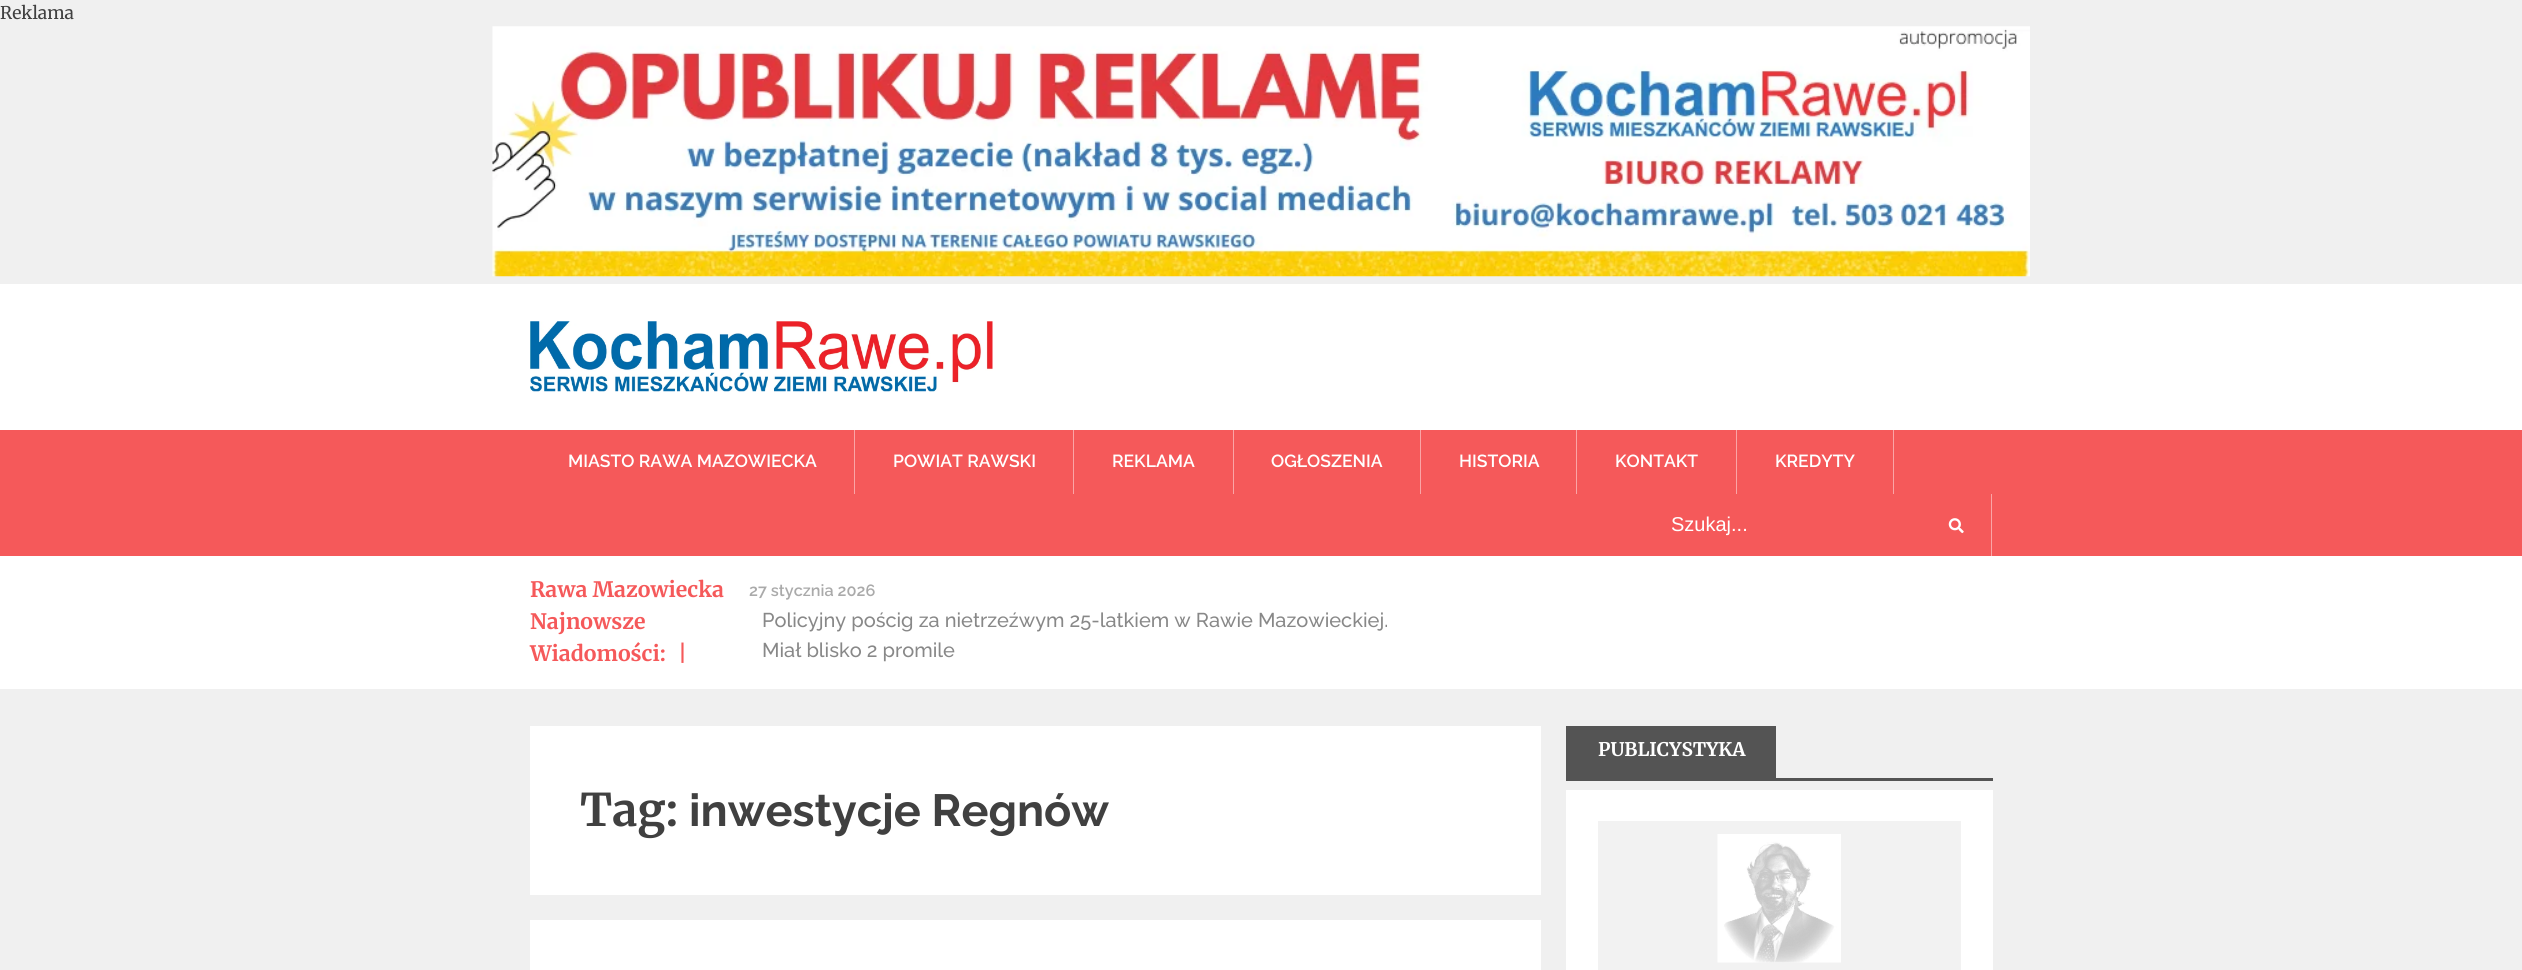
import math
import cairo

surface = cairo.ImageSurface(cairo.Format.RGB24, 2522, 970)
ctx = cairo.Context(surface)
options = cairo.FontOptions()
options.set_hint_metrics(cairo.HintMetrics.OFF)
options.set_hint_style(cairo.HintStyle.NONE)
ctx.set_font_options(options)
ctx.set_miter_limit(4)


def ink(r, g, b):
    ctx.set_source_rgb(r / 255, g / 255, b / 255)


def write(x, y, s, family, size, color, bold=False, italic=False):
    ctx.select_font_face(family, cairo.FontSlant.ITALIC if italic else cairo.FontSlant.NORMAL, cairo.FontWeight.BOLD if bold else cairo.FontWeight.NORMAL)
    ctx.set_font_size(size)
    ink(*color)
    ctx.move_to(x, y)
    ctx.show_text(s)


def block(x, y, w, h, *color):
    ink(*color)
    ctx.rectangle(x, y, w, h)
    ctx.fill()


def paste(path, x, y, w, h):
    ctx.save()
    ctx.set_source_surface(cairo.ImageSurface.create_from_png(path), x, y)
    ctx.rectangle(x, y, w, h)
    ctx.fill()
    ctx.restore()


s1 = dict(family="Merriweather", size=17.5, color=(64, 64, 64))
s2 = dict(family="Raleway SemiBold", size=17.5, color=(255, 255, 255))
s3 = dict(family="Liberation Sans", size=20, color=(255, 255, 255))
s4 = dict(family="Merriweather", size=21.25, color=(245, 89, 90), bold=True)
s5 = dict(family="Raleway SemiBold", size=16.25, color=(170, 170, 170))
s6 = dict(family="Raleway Medium", size=20, color=(136, 136, 136))
s7 = dict(family="Merriweather", size=18.75, color=(255, 255, 255), bold=True)
s8 = dict(family="Merriweather", size=45, color=(64, 64, 64), bold=True)
s9 = dict(family="Raleway", size=45, color=(64, 64, 64), bold=True)

ink(240, 240, 240)
ctx.paint()
write(0, 19, "Reklama", **s1)
paste("pic1.png", 492, 26, 1538, 251)
block(0, 284, 2522, 146, 255, 255, 255)
paste("pic2.png", 530, 321, 463, 71)
block(0, 430, 2522, 126, 245, 89, 90)
block(854, 430, 1, 64, 250, 165, 166)
write(568, 467, "MIASTO RAWA MAZOWIECKA", **s2)
block(1073, 430, 1, 64, 250, 165, 166)
write(893, 467, "POWIAT RAWSKI", **s2)
block(1233, 430, 1, 64, 250, 165, 166)
write(1112, 467, "REKLAMA", **s2)
block(1420, 430, 1, 64, 250, 165, 166)
write(1271, 467, "OGŁOSZENIA", **s2)
block(1576, 430, 1, 64, 250, 165, 166)
write(1459, 467, "HISTORIA", **s2)
block(1736, 430, 1, 64, 250, 165, 166)
write(1615, 467, "KONTAKT", **s2)
block(1893, 430, 1, 64, 250, 165, 166)
write(1775, 467, "KREDYTY", **s2)
block(1991, 494, 1, 62, 250, 165, 166)
write(1671, 531, "Szukaj...", **s3)
paste("pic3.png", 1948, 518, 16, 16)
block(0, 556, 2522, 133, 255, 255, 255)
write(530, 597, "Rawa Mazowiecka", **s4)
write(530, 629, "Najnowsze", **s4)
write(530, 661, "Wiadomości:", **s4)
write(678, 661, "|", **s4)
write(749, 596, "27 stycznia 2026", **s5)
write(762, 627, "Policyjny pościg za nietrzeźwym 25-latkiem w Rawie Mazowieckiej.", **s6)
write(762, 657, "Miał blisko 2 promile", **s6)
block(1566, 778, 427, 3, 84, 84, 84)
block(1566, 726, 210, 52, 84, 84, 84)
write(1598, 756, "PUBLICYSTYKA", **s7)
block(1566, 790, 427, 180, 255, 255, 255)
block(1598, 821, 363, 149, 242, 242, 242)
paste("pic4.png", 1717, 834, 124, 129)
block(530, 726, 1011, 169, 255, 255, 255)
write(580, 826, "Tag:", **s8)
write(689, 826, "inwestycje Regnów", **s9)
block(530, 920, 1011, 50, 255, 255, 255)
surface.write_to_png("screenshot.png")
